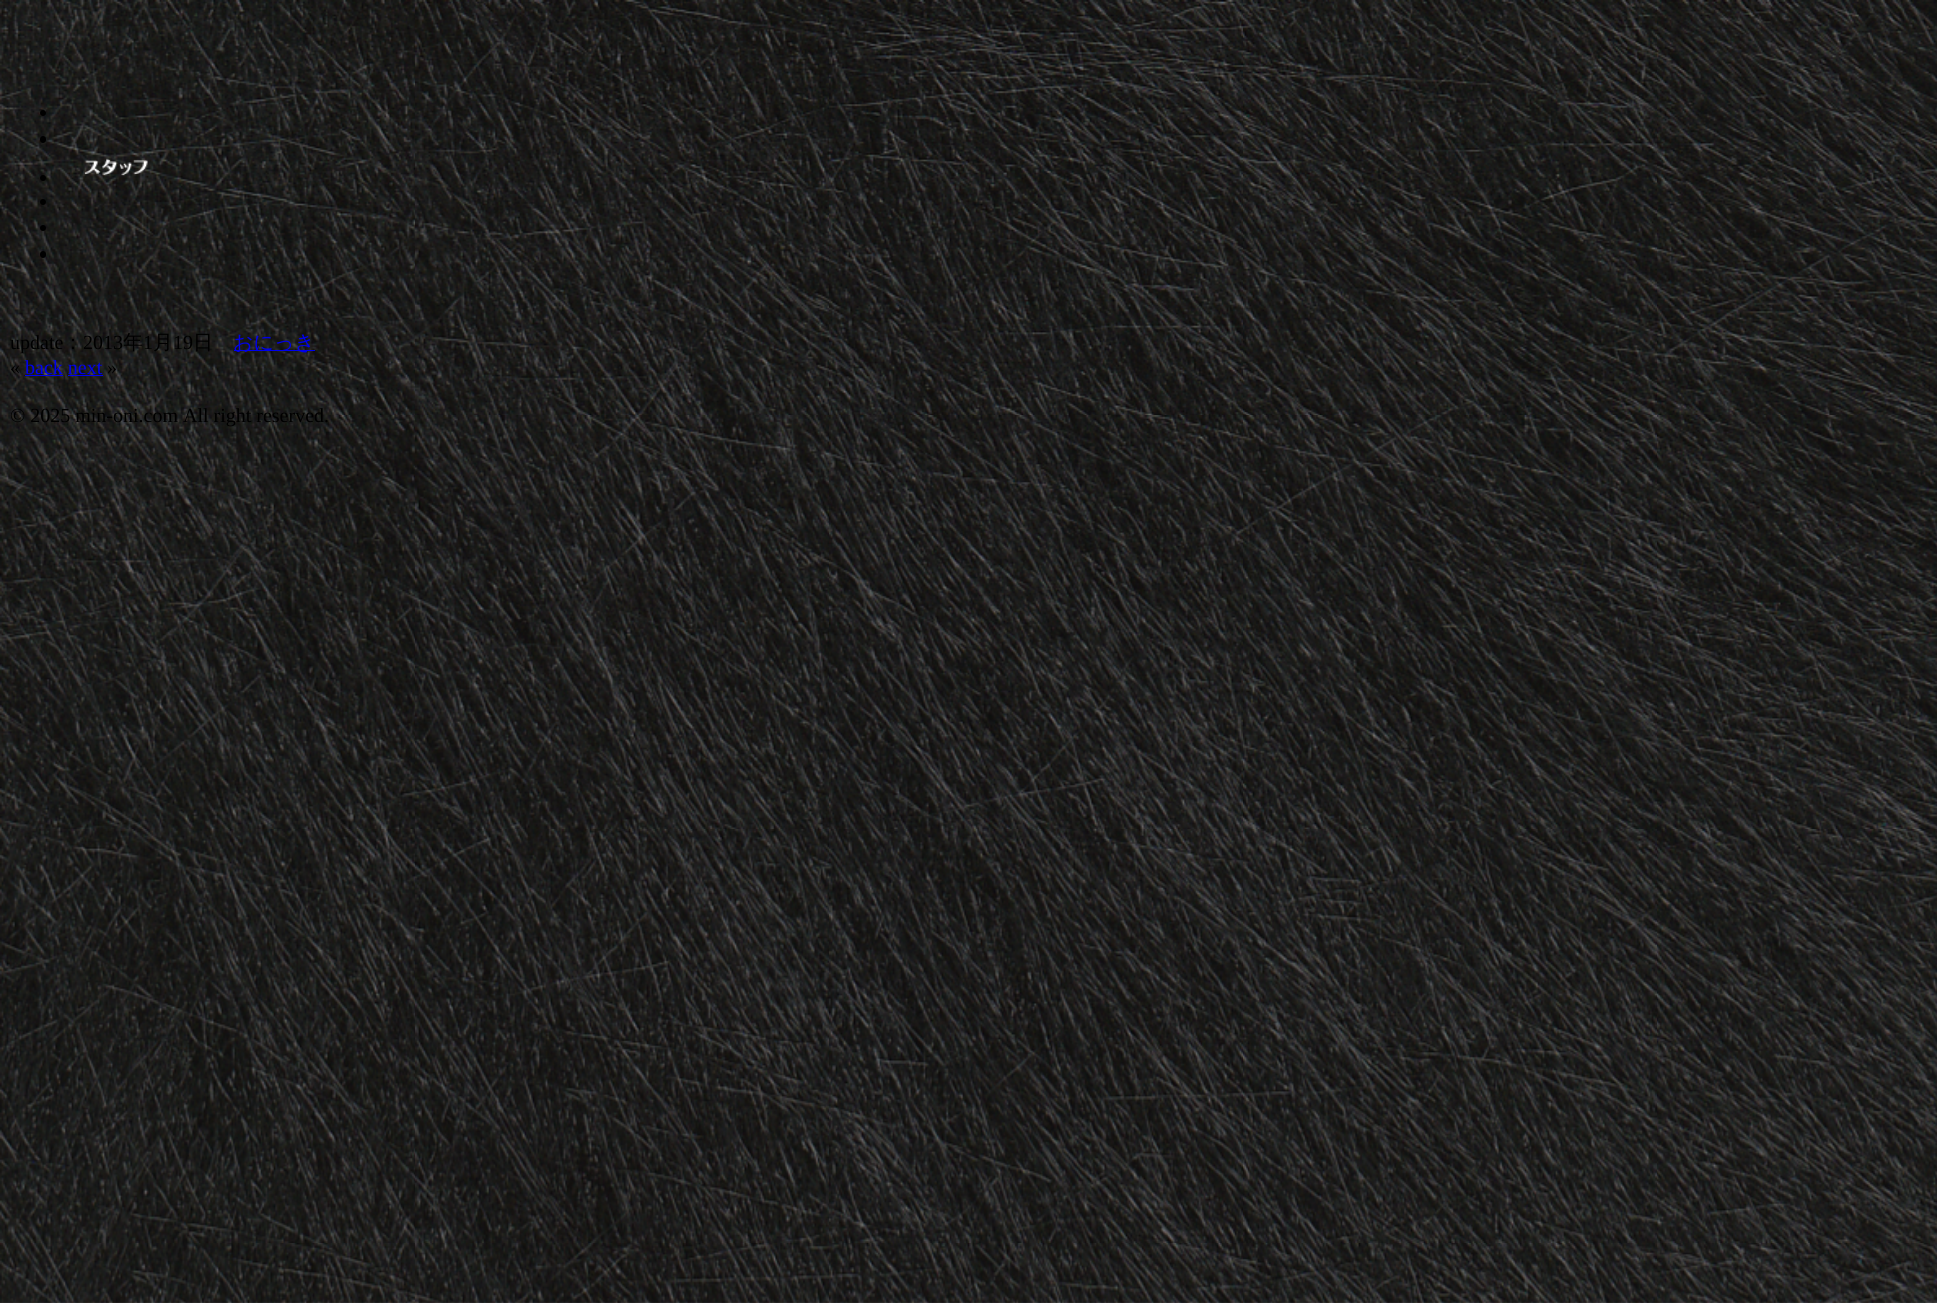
import math
import cairo

surface = cairo.ImageSurface(cairo.Format.RGB24, 1937, 1303)
ctx = cairo.Context(surface)
options = cairo.FontOptions()
options.set_hint_metrics(cairo.HintMetrics.OFF)
options.set_hint_style(cairo.HintStyle.NONE)
ctx.set_font_options(options)
ctx.set_miter_limit(4)


def ink(r, g, b):
    ctx.set_source_rgb(r / 255, g / 255, b / 255)


def write(x, y, s, family, size, color, bold=False, italic=False):
    ctx.select_font_face(family, cairo.FontSlant.ITALIC if italic else cairo.FontSlant.NORMAL, cairo.FontWeight.BOLD if bold else cairo.FontWeight.NORMAL)
    ctx.set_font_size(size)
    ink(*color)
    ctx.move_to(x, y)
    ctx.show_text(s)


def block(x, y, w, h, *color):
    ink(*color)
    ctx.rectangle(x, y, w, h)
    ctx.fill()


def round_path(x, y, w, h, r):
    ctx.new_sub_path()
    for i, (u, v) in enumerate([(x + w - r, y + h - r), (x + r, y + h - r), (x + r, y + r), (x + w - r, y + r)]):
        ctx.arc(u, v, r, i * math.pi / 2, (i + 1) * math.pi / 2)
    ctx.close_path()


def paste(path, x, y, w, h):
    ctx.save()
    ctx.set_source_surface(cairo.ImageSurface.create_from_png(path), x, y)
    ctx.rectangle(x, y, w, h)
    ctx.fill()
    ctx.restore()


s1 = dict(family="Liberation Serif", size=20, color=(0, 0, 0))
s2 = dict(family="WenQuanYi Zen Hei Medium", size=20, color=(0, 0, 0))
s3 = dict(family="WenQuanYi Zen Hei Medium", size=20, color=(0, 0, 238))
s4 = dict(family="Liberation Serif", size=20, color=(0, 0, 238))

ink(255, 255, 255)
ctx.paint()
paste("pic1.png", 0, 0, 1937, 1303)
ink(0, 0, 0)
ctx.arc(43, 113, 3, 0, 2 * math.pi)
ctx.fill()
round_path(40, 136, 6, 7, 3)
ctx.fill()
paste("pic2.png", 84, 158, 64, 18)
ctx.arc(43, 178, 3, 0, 2 * math.pi)
ctx.fill()
ctx.arc(43, 202, 3, 0, 2 * math.pi)
ctx.fill()
ctx.arc(43, 228, 3, 0, 2 * math.pi)
ctx.fill()
round_path(40, 251, 6, 7, 3)
ctx.fill()
write(10, 349, "update", **s1)
write(63, 349, "：", **s2)
write(83, 349, "2013", **s1)
write(123, 349, "年", **s2)
write(143, 349, "1", **s1)
write(153, 349, "月", **s2)
write(173, 349, "19", **s1)
write(193, 349, "日", **s2)
block(234, 350, 81, 1, 0, 0, 238)
write(233, 349, "おにっき", **s3)
write(10, 374, "«", **s1)
write(25, 374, "back next", **s4)
block(25, 375, 38, 1, 0, 0, 238)
write(107, 374, "»", **s1)
block(68, 375, 35, 1, 0, 0, 238)
write(10, 422, "© 2025 min-oni.com All right reserved.", **s1)
surface.write_to_png("screenshot.png")
